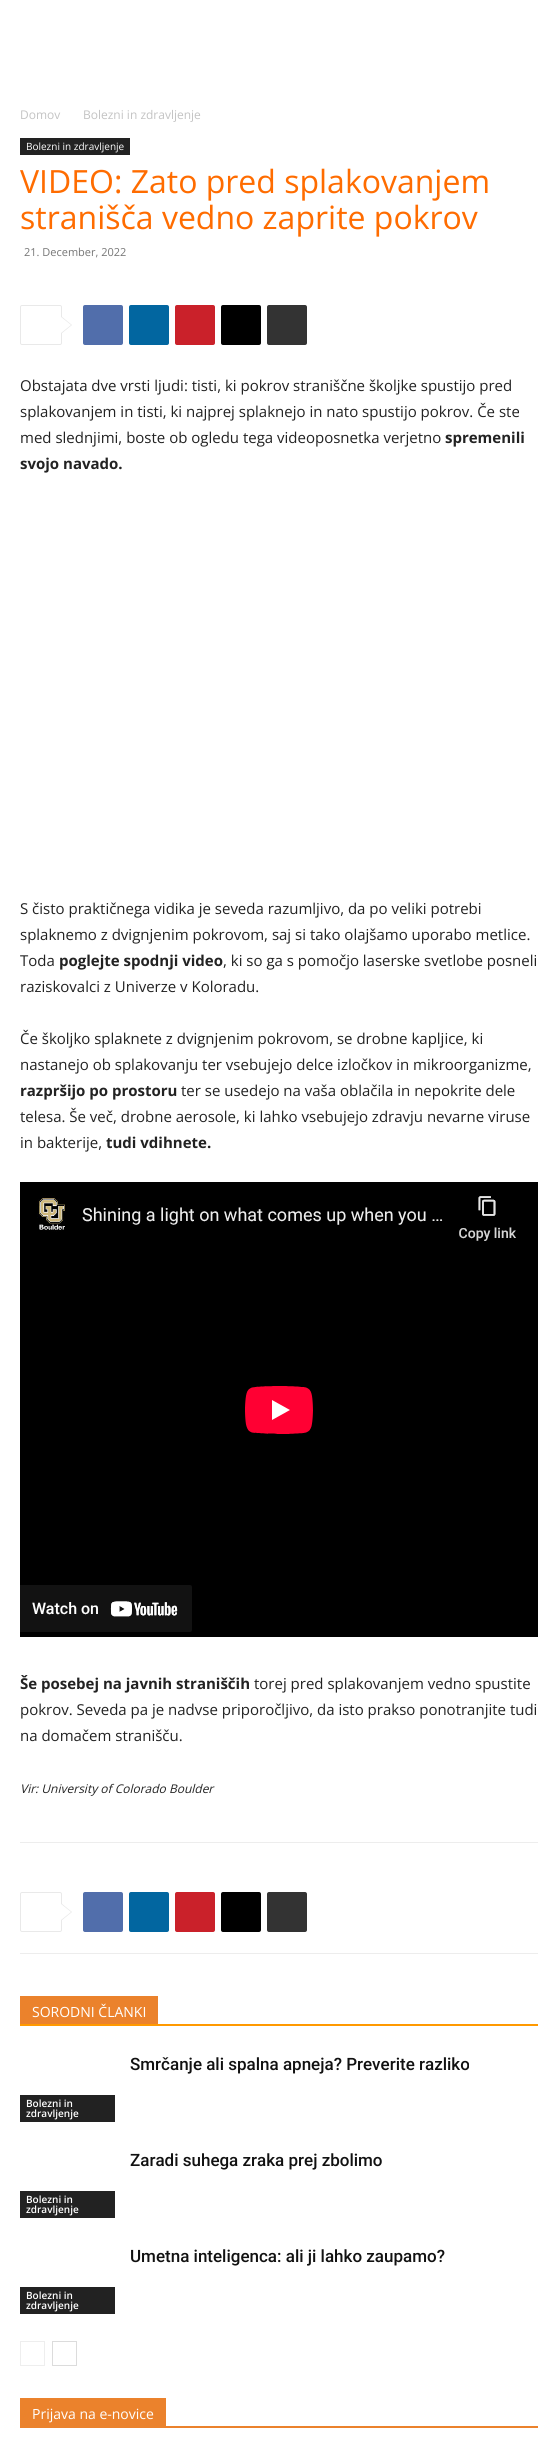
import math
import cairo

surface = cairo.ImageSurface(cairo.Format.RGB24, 558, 2441)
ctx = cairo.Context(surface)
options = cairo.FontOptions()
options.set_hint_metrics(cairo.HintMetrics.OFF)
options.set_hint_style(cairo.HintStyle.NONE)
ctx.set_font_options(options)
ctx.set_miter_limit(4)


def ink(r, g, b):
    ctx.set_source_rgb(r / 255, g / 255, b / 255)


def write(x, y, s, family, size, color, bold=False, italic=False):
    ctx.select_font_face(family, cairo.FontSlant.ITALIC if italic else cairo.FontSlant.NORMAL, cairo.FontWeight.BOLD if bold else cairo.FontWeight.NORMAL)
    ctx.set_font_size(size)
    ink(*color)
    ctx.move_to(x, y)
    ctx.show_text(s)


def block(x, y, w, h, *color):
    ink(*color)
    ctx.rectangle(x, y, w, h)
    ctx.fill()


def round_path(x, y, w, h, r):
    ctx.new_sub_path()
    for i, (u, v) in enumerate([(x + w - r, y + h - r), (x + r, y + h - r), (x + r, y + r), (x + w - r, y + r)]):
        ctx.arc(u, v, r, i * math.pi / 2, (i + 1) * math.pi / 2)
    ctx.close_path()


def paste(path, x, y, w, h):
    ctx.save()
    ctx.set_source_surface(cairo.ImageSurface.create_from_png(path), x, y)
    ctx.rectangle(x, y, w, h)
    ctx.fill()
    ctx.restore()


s1 = dict(family="Open Sans", size=12, color=(195, 195, 195))
s2 = dict(family="Open Sans", size=10, color=(255, 255, 255))
s3 = dict(family="Open Sans", size=32, color=(255, 108, 0))
s4 = dict(family="Open Sans", size=11, color=(118, 118, 118))
s5 = dict(family="Open Sans", size=15, color=(34, 34, 34))
s6 = dict(family="Open Sans", size=15, color=(34, 34, 34), bold=True)
s7 = dict(family="Open Sans", size=12, color=(34, 34, 34), italic=True)
s8 = dict(family="Open Sans", size=14, color=(255, 255, 255))
s9 = dict(family="Roboto Medium", size=17, color=(17, 17, 17))
s10 = dict(family="Open Sans SemiBold", size=10, color=(255, 255, 255))

ink(255, 255, 255)
ctx.paint()
write(20, 119, "Domov", **s1)
write(83, 119, "Bolezni in zdravljenje", **s1)
block(20, 138, 110, 17, 34, 34, 34)
write(26, 150, "Bolezni in zdravljenje", **s2)
write(20, 193, "VIDEO: Zato pred splakovanjem", **s3)
write(20, 229, "stranišča vedno zaprite pokrov", **s3)
write(24, 256, "21. December, 2022", **s4)
round_path(20.5, 305.5, 41, 39, 1.5)
ink(233, 233, 233)
ctx.set_line_width(1)
ctx.stroke()
ctx.new_path()
ctx.move_to(61, 334)
ctx.line_to(61, 316)
ctx.line_to(72, 325)
ctx.close_path()
ctx.fill()
ink(255, 255, 255)
ctx.new_path()
ctx.move_to(61, 333)
ctx.line_to(61, 317)
ctx.line_to(71, 325)
ctx.close_path()
ctx.fill()
ink(81, 110, 171)
round_path(83, 305, 40, 40, 2)
ctx.fill()
ink(2, 102, 160)
round_path(129, 305, 40, 40, 2)
ctx.fill()
ink(202, 33, 42)
round_path(175, 305, 40, 40, 2)
ctx.fill()
ink(0, 0, 0)
round_path(221, 305, 40, 40, 2)
ctx.fill()
ink(51, 51, 51)
round_path(267, 305, 40, 40, 2)
ctx.fill()
write(20, 391, "Obstajata dve vrsti ljudi: tisti, ki pokrov straniščne školjke spustijo pred", **s5)
write(20, 417, "splakovanjem in tisti, ki najprej splaknejo in nato spustijo pokrov. Če ste", **s5)
write(20, 443, "med slednjimi, boste ob ogledu tega videoposnetka verjetno", **s5)
write(445, 443, "spremenili", **s6)
write(20, 469, "svojo navado.", **s6)
write(20, 914, "S čisto praktičnega vidika je seveda razumljivo, da po veliki potrebi", **s5)
write(20, 940, "splaknemo z dvignjenim pokrovom, saj si tako olajšamo uporabo metlice.", **s5)
write(20, 966, "Toda", **s5)
write(59, 966, "poglejte spodnji video", **s6)
write(223, 966, ", ki so ga s pomočjo laserske svetlobe posneli", **s5)
write(20, 992, "raziskovalci z Univerze v Koloradu.", **s5)
write(20, 1044, "Če školjko splaknete z dvignjenim pokrovom, se drobne kapljice, ki", **s5)
write(20, 1070, "nastanejo ob splakovanju ter vsebujejo delce izločkov in mikroorganizme,", **s5)
write(20, 1096, "razpršijo po prostoru", **s6)
write(181, 1096, "ter se usedejo na vaša oblačila in nepokrite dele", **s5)
write(20, 1122, "telesa. Še več, drobne aerosole, ki lahko vsebujejo zdravju nevarne viruse", **s5)
write(20, 1148, "in bakterije,", **s5)
write(106, 1148, "tudi vdihnete.", **s6)
paste("pic1.png", 20, 1182, 518, 455)
write(20, 1689, "Še posebej na javnih straniščih", **s6)
write(254, 1689, "torej pred splakovanjem vedno spustite", **s5)
write(20, 1715, "pokrov. Seveda pa je nadvse priporočljivo, da isto prakso ponotranjite tudi", **s5)
write(20, 1741, "na domačem stranišču.", **s5)
write(20, 1793, "Vir: University of Colorado Boulder", **s7)
block(20, 1842, 518, 1, 237, 237, 237)
block(20, 1953, 518, 1, 237, 237, 237)
round_path(20.5, 1892.5, 41, 39, 1.5)
ink(233, 233, 233)
ctx.stroke()
ctx.new_path()
ctx.move_to(61, 1921)
ctx.line_to(61, 1903)
ctx.line_to(72, 1912)
ctx.close_path()
ctx.fill()
ink(255, 255, 255)
ctx.new_path()
ctx.move_to(61, 1920)
ctx.line_to(61, 1904)
ctx.line_to(71, 1912)
ctx.close_path()
ctx.fill()
ink(81, 110, 171)
round_path(83, 1892, 40, 40, 2)
ctx.fill()
ink(2, 102, 160)
round_path(129, 1892, 40, 40, 2)
ctx.fill()
ink(202, 33, 42)
round_path(175, 1892, 40, 40, 2)
ctx.fill()
ink(0, 0, 0)
round_path(221, 1892, 40, 40, 2)
ctx.fill()
ink(51, 51, 51)
round_path(267, 1892, 40, 40, 2)
ctx.fill()
block(20, 2024, 518, 2, 255, 153, 0)
block(20, 1996, 138, 28, 235, 130, 44)
write(32, 2017, "SORODNI ČLANKI", **s8)
write(130, 2070, "Smrčanje ali spalna apneja? Preverite razliko", **s9)
block(20, 2095, 95, 27, 34, 34, 34)
write(26, 2107, "Bolezni in", **s10)
write(26, 2117, "zdravljenje", **s10)
write(130, 2166, "Zaradi suhega zraka prej zbolimo", **s9)
block(20, 2191, 95, 27, 34, 34, 34)
write(26, 2203, "Bolezni in", **s10)
write(26, 2213, "zdravljenje", **s10)
write(130, 2262, "Umetna inteligenca: ali ji lahko zaupamo?", **s9)
block(20, 2287, 95, 27, 34, 34, 34)
write(26, 2299, "Bolezni in", **s10)
write(26, 2309, "zdravljenje", **s10)
ctx.rectangle(20.5, 2341.5, 24, 24)
ink(238, 238, 238)
ctx.stroke()
ctx.rectangle(52.5, 2341.5, 24, 24)
ink(220, 220, 220)
ctx.stroke()
block(20, 2426, 518, 2, 235, 130, 44)
block(20, 2398, 146, 28, 235, 130, 44)
write(32, 2419, "Prijava na e-novice", **s8)
surface.write_to_png("screenshot.png")
